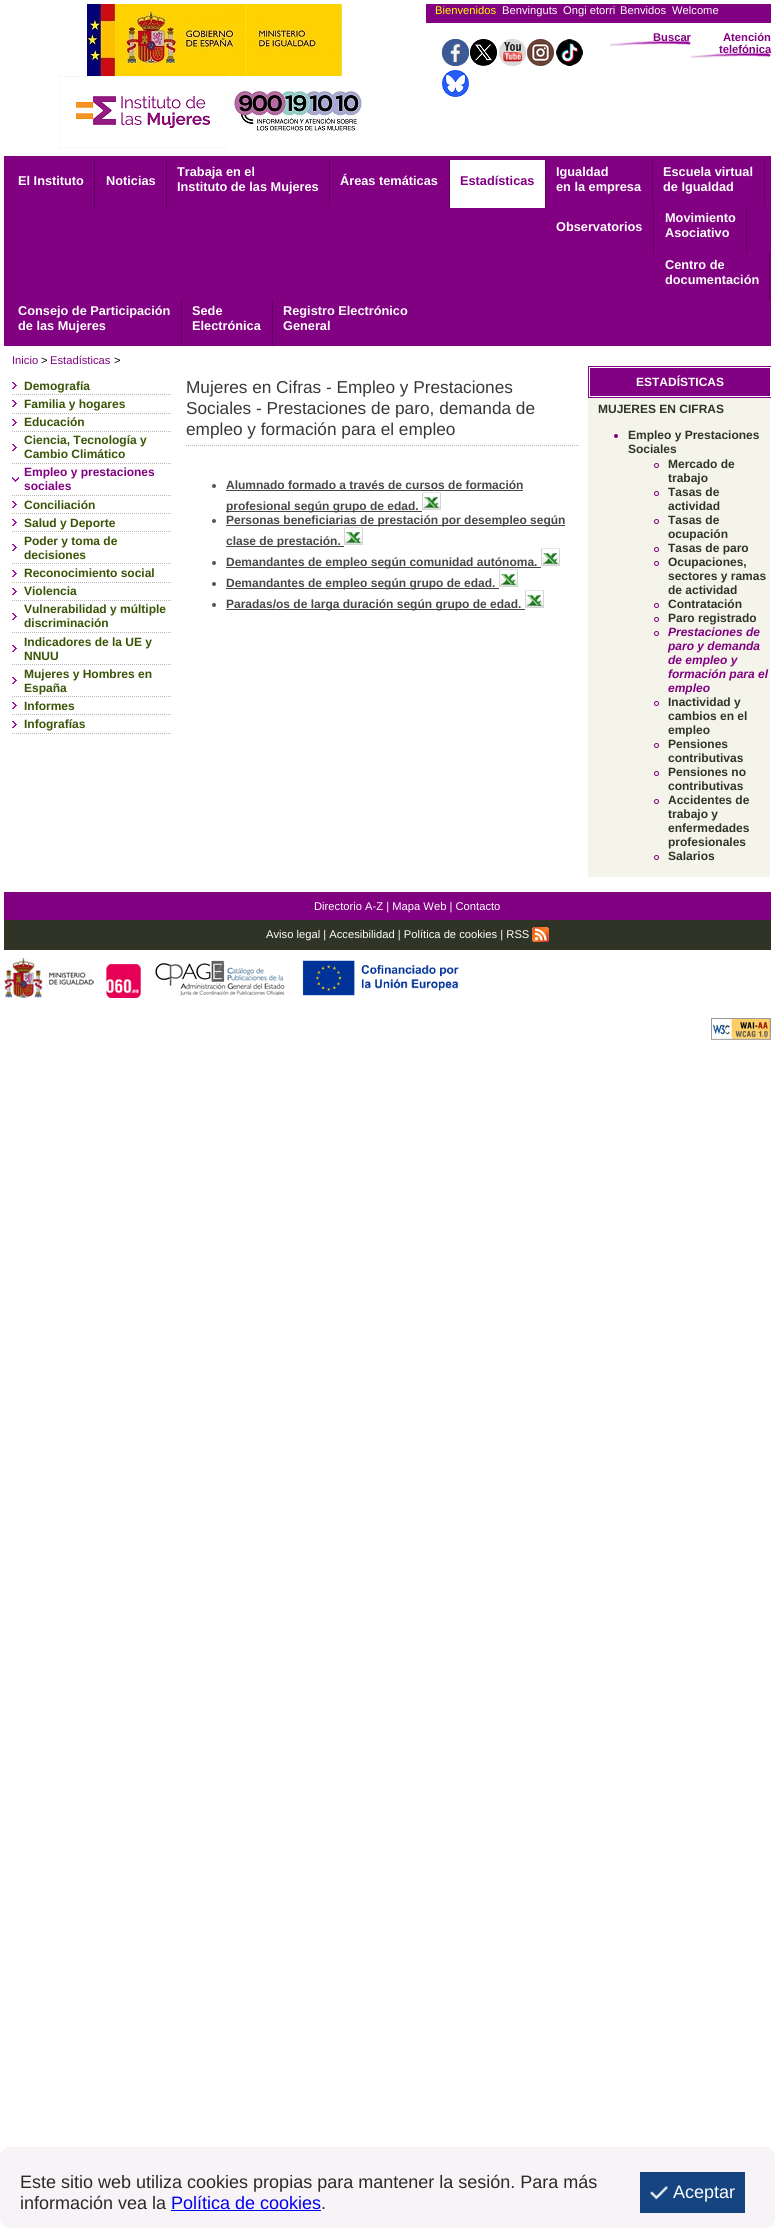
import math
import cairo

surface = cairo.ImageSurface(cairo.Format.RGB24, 775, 2228)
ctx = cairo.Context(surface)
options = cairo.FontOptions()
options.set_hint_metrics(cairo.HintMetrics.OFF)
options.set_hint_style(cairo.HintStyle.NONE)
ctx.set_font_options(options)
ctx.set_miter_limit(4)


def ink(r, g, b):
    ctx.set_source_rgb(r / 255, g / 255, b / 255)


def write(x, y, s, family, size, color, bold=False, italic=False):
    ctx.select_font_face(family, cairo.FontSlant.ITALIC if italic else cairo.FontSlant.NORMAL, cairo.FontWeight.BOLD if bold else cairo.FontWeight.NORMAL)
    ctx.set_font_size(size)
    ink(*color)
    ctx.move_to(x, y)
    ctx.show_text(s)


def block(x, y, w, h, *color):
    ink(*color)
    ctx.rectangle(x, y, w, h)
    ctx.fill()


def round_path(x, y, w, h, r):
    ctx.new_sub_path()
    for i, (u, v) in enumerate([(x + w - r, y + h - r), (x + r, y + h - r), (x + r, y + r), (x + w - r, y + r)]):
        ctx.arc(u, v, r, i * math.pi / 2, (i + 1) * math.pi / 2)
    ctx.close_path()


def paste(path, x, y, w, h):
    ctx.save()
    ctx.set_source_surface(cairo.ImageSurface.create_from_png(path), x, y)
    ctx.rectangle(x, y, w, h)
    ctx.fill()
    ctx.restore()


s1 = dict(family="Liberation Sans", size=11.2, color=(255, 255, 0))
s2 = dict(family="Liberation Sans", size=11.2, color=(255, 255, 255))
s3 = dict(family="Liberation Sans", size=11.2, color=(130, 0, 130), bold=True)
s4 = dict(family="Liberation Sans", size=12.75, color=(255, 255, 255), bold=True)
s5 = dict(family="Liberation Sans", size=12.75, color=(130, 0, 130), bold=True)
s6 = dict(family="Liberation Sans", size=11.2, color=(130, 0, 130))
s7 = dict(family="Liberation Sans", size=11.2, color=(0, 0, 0))
s8 = dict(family="Liberation Sans", size=12, color=(57, 84, 5), bold=True)
s9 = dict(family="Liberation Sans", size=12, color=(130, 0, 130), bold=True)
s10 = dict(family="Liberation Sans", size=17.25, color=(56, 56, 56))
s11 = dict(family="Liberation Sans", size=12, color=(72, 72, 72), bold=True)
s12 = dict(family="Liberation Sans", size=12, color=(255, 255, 255), bold=True)
s13 = dict(family="Liberation Sans", size=12, color=(48, 52, 39), bold=True)
s14 = dict(family="Liberation Sans", size=12, color=(130, 0, 130), bold=True, italic=True)
s15 = dict(family="Liberation Sans", size=18, color=(42, 42, 42))
s16 = dict(family="Liberation Sans", size=18, color=(0, 0, 238))
s17 = dict(family="Liberation Sans", size=18, color=(255, 255, 255))

ink(255, 255, 255)
ctx.paint()
paste("pic1.png", 87, 4, 255, 72)
paste("pic2.png", 59, 76, 168, 72)
paste("pic3.png", 227, 84, 142, 47)
block(426, 4, 345, 19, 130, 0, 130)
write(435, 14, "Bienvenidos", **s1)
write(502, 14, "Benvinguts", **s2)
write(563, 14, "Ongi etorri", **s2)
write(620, 14, "Benvidos", **s2)
write(672, 14, "Welcome", **s2)
paste("pic4.png", 442, 39, 27, 27)
paste("pic5.png", 470, 39, 27, 27)
paste("pic6.png", 499, 39, 27, 27)
paste("pic7.png", 527, 39, 27, 27)
paste("pic8.png", 556, 39, 27, 27)
paste("pic9.png", 442, 70, 27, 27)
paste("pic10.png", 610, 41, 81, 6)
write(653, 41, "Buscar", **s3)
paste("pic11.png", 691, 53, 80, 6)
write(723, 41, "Atención", **s3)
write(719, 53, "telefónica", **s3)
block(4, 156, 767, 190, 130, 0, 130)
block(94, 160, 1, 48, 100, 0, 100)
write(18, 185, "El Instituto", **s4)
block(166, 160, 1, 48, 100, 0, 100)
write(106, 185, "Noticias", **s4)
block(329, 160, 1, 46, 100, 0, 100)
write(177, 176, "Trabaja en el", **s4)
write(177, 191, "Instituto de las Mujeres", **s4)
block(449, 160, 1, 48, 100, 0, 100)
write(340, 185, "Áreas temáticas", **s4)
block(545, 160, 1, 48, 100, 0, 100)
block(450, 160, 95, 48, 255, 255, 255)
write(460, 185, "Estadísticas", **s5)
block(652, 160, 1, 46, 100, 0, 100)
write(556, 176, "Igualdad", **s4)
write(556, 191, "en la empresa", **s4)
block(764, 160, 1, 46, 100, 0, 100)
write(663, 176, "Escuela virtual", **s4)
write(663, 191, "de Igualdad", **s4)
block(653, 206, 1, 49, 100, 0, 100)
write(556, 231, "Observatorios", **s4)
block(746, 206, 1, 47, 100, 0, 100)
write(665, 222, "Movimiento", **s4)
write(665, 237, "Asociativo", **s4)
block(769, 253, 1, 47, 100, 0, 100)
write(665, 269, "Centro de", **s4)
write(665, 284, "documentación", **s4)
block(181, 300, 1, 46, 100, 0, 100)
write(18, 315, "Consejo de Participación", **s4)
write(18, 330, "de las Mujeres", **s4)
block(272, 300, 1, 46, 100, 0, 100)
write(192, 315, "Sede", **s4)
write(192, 330, "Electrónica", **s4)
write(283, 315, "Registro Electrónico", **s4)
write(283, 330, "General", **s4)
write(12, 364, "Inicio", **s6)
write(41, 364, ">", **s7)
write(50, 364, "Estadísticas", **s6)
write(114, 364, ">", **s7)
ctx.new_path()
ctx.move_to(12, 394.5)
ctx.line_to(171, 394.5)
ink(184, 184, 184)
ctx.set_line_width(1)
ctx.set_dash([1, 1])
ctx.stroke()
paste("pic12.png", 12, 382, 5, 7)
write(24, 390, "Demografía", **s8)
ctx.new_path()
ctx.move_to(12, 413.5)
ctx.line_to(171, 413.5)
ink(184, 184, 184)
ctx.stroke()
paste("pic12.png", 12, 400, 5, 7)
write(24, 408, "Familia y hogares", **s8)
ctx.new_path()
ctx.move_to(12, 431.5)
ctx.line_to(171, 431.5)
ink(184, 184, 184)
ctx.stroke()
paste("pic12.png", 12, 419, 5, 7)
write(24, 426, "Educación", **s8)
ctx.new_path()
ctx.move_to(12, 463.5)
ctx.line_to(171, 463.5)
ink(184, 184, 184)
ctx.stroke()
paste("pic12.png", 12, 444, 5, 7)
write(24, 444, "Ciencia, Tecnología y", **s8)
write(24, 458, "Cambio Climático", **s8)
ctx.new_path()
ctx.move_to(12, 495.5)
ctx.line_to(171, 495.5)
ink(184, 184, 184)
ctx.stroke()
paste("pic13.png", 12, 477, 7, 5)
write(24, 476, "Empleo y prestaciones", **s9)
write(24, 490, "sociales", **s9)
ctx.new_path()
ctx.move_to(12, 513.5)
ctx.line_to(171, 513.5)
ink(184, 184, 184)
ctx.stroke()
paste("pic12.png", 12, 501, 5, 7)
write(24, 509, "Conciliación", **s8)
ctx.new_path()
ctx.move_to(12, 531.5)
ctx.line_to(171, 531.5)
ink(184, 184, 184)
ctx.stroke()
paste("pic12.png", 12, 519, 5, 7)
write(24, 527, "Salud y Deporte", **s8)
ctx.new_path()
ctx.move_to(12, 563.5)
ctx.line_to(171, 563.5)
ink(184, 184, 184)
ctx.stroke()
paste("pic12.png", 12, 544, 5, 7)
write(24, 545, "Poder y toma de", **s8)
write(24, 559, "decisiones", **s8)
ctx.new_path()
ctx.move_to(12, 582.5)
ctx.line_to(171, 582.5)
ink(184, 184, 184)
ctx.stroke()
paste("pic12.png", 12, 570, 5, 7)
write(24, 577, "Reconocimiento social", **s8)
ctx.new_path()
ctx.move_to(12, 600.5)
ctx.line_to(171, 600.5)
ink(184, 184, 184)
ctx.stroke()
paste("pic12.png", 12, 588, 5, 7)
write(24, 595, "Violencia", **s8)
ctx.new_path()
ctx.move_to(12, 632.5)
ctx.line_to(171, 632.5)
ink(184, 184, 184)
ctx.stroke()
paste("pic12.png", 12, 613, 5, 7)
write(24, 613, "Vulnerabilidad y múltiple", **s8)
write(24, 627, "discriminación", **s8)
ctx.new_path()
ctx.move_to(12, 664.5)
ctx.line_to(171, 664.5)
ink(184, 184, 184)
ctx.stroke()
paste("pic12.png", 12, 645, 5, 7)
write(24, 646, "Indicadores de la UE y", **s8)
write(24, 660, "NNUU", **s8)
ctx.new_path()
ctx.move_to(12, 696.5)
ctx.line_to(171, 696.5)
ink(184, 184, 184)
ctx.stroke()
paste("pic12.png", 12, 677, 5, 7)
write(24, 678, "Mujeres y Hombres en", **s8)
write(24, 692, "España", **s8)
ctx.new_path()
ctx.move_to(12, 714.5)
ctx.line_to(171, 714.5)
ink(184, 184, 184)
ctx.stroke()
paste("pic12.png", 12, 702, 5, 7)
write(24, 710, "Informes", **s8)
ctx.new_path()
ctx.move_to(12, 733.5)
ctx.line_to(171, 733.5)
ink(184, 184, 184)
ctx.stroke()
paste("pic12.png", 12, 721, 5, 7)
write(24, 728, "Infografías", **s8)
ctx.new_path()
ctx.move_to(186, 445.5)
ctx.line_to(580, 445.5)
ink(184, 184, 184)
ctx.stroke()
write(186, 393, "Mujeres en Cifras - Empleo y Prestaciones", **s10)
write(186, 414, "Sociales - Prestaciones de paro, demanda de", **s10)
write(186, 435, "empleo y formación para el empleo", **s10)
ink(87, 87, 87)
ctx.new_path()
ctx.arc(214, 486, 2, 0, 2 * math.pi)
ctx.fill()
write(226, 489, "Alumnado formado a través de cursos de formación", **s11)
block(226, 490, 297, 1, 72, 72, 72)
block(226, 511, 196, 1, 72, 72, 72)
write(226, 510, "profesional según grupo de edad.", **s11)
paste("pic14.png", 422, 492, 19, 18)
ink(87, 87, 87)
ctx.arc(214, 521, 2, 0, 2 * math.pi)
ctx.fill()
block(226, 525, 339, 1, 72, 72, 72)
write(226, 524, "Personas beneficiarias de prestación por desempleo según", **s11)
block(226, 546, 118, 1, 72, 72, 72)
write(226, 545, "clase de prestación.", **s11)
paste("pic14.png", 344, 527, 19, 18)
ink(87, 87, 87)
ctx.arc(214, 563, 2, 0, 2 * math.pi)
ctx.fill()
block(226, 567, 315, 1, 72, 72, 72)
write(226, 566, "Demandantes de empleo según comunidad autónoma.", **s11)
paste("pic14.png", 541, 548, 19, 18)
ink(87, 87, 87)
ctx.arc(214, 584, 2, 0, 2 * math.pi)
ctx.fill()
block(226, 588, 273, 1, 72, 72, 72)
write(226, 587, "Demandantes de empleo según grupo de edad.", **s11)
paste("pic14.png", 499, 569, 19, 18)
ink(87, 87, 87)
ctx.arc(214, 605, 2, 0, 2 * math.pi)
ctx.fill()
block(226, 609, 299, 1, 72, 72, 72)
write(226, 608, "Paradas/os de larga duración según grupo de edad.", **s11)
paste("pic14.png", 525, 590, 19, 18)
block(588, 398, 182, 479, 244, 244, 234)
block(588, 366, 183, 32, 130, 0, 130)
ctx.rectangle(589.5, 367.5, 181, 29)
ink(255, 255, 255)
ctx.set_dash([])
ctx.stroke()
write(636, 386, "ESTADÍSTICAS", **s12)
write(598, 413, "MUJERES EN CIFRAS", **s13)
ink(130, 0, 130)
ctx.new_path()
ctx.arc(616, 436, 2, 0, 2 * math.pi)
ctx.fill()
write(628, 439, "Empleo y Prestaciones", **s13)
write(628, 453, "Sociales", **s13)
ctx.new_path()
ctx.arc(656.5, 465.5, 2, 0, 2 * math.pi)
ink(130, 0, 130)
ctx.stroke()
write(668, 468, "Mercado de", **s13)
write(668, 482, "trabajo", **s13)
ctx.new_path()
ctx.arc(656.5, 493.5, 2, 0, 2 * math.pi)
ink(130, 0, 130)
ctx.stroke()
write(668, 496, "Tasas de", **s13)
write(668, 510, "actividad", **s13)
ctx.new_path()
ctx.arc(656.5, 521.5, 2, 0, 2 * math.pi)
ink(130, 0, 130)
ctx.stroke()
write(668, 524, "Tasas de", **s13)
write(668, 538, "ocupación", **s13)
ctx.new_path()
ctx.arc(656.5, 549.5, 2, 0, 2 * math.pi)
ink(130, 0, 130)
ctx.stroke()
write(668, 552, "Tasas de paro", **s13)
ctx.new_path()
ctx.arc(656.5, 563.5, 2, 0, 2 * math.pi)
ink(130, 0, 130)
ctx.stroke()
write(668, 566, "Ocupaciones,", **s13)
write(668, 580, "sectores y ramas", **s13)
write(668, 594, "de actividad", **s13)
ctx.new_path()
ctx.arc(656.5, 605.5, 2, 0, 2 * math.pi)
ink(130, 0, 130)
ctx.stroke()
write(668, 608, "Contratación", **s13)
ctx.new_path()
ctx.arc(656.5, 619.5, 2, 0, 2 * math.pi)
ink(130, 0, 130)
ctx.stroke()
write(668, 622, "Paro registrado", **s13)
ctx.new_path()
ctx.arc(656.5, 633.5, 2, 0, 2 * math.pi)
ink(130, 0, 130)
ctx.stroke()
write(668, 636, "Prestaciones de", **s14)
write(668, 650, "paro y demanda", **s14)
write(668, 664, "de empleo y", **s14)
write(668, 678, "formación para el", **s14)
write(668, 692, "empleo", **s14)
ctx.new_path()
ctx.arc(656.5, 703.5, 2, 0, 2 * math.pi)
ctx.stroke()
write(668, 706, "Inactividad y", **s13)
write(668, 720, "cambios en el", **s13)
write(668, 734, "empleo", **s13)
ctx.new_path()
ctx.arc(656.5, 745.5, 2, 0, 2 * math.pi)
ink(130, 0, 130)
ctx.stroke()
write(668, 748, "Pensiones", **s13)
write(668, 762, "contributivas", **s13)
ctx.new_path()
ctx.arc(656.5, 773.5, 2, 0, 2 * math.pi)
ink(130, 0, 130)
ctx.stroke()
write(668, 776, "Pensiones no", **s13)
write(668, 790, "contributivas", **s13)
ctx.new_path()
ctx.arc(656.5, 801.5, 2, 0, 2 * math.pi)
ink(130, 0, 130)
ctx.stroke()
write(668, 804, "Accidentes de", **s13)
write(668, 818, "trabajo y", **s13)
write(668, 832, "enfermedades", **s13)
write(668, 846, "profesionales", **s13)
ctx.new_path()
ctx.arc(656.5, 857.5, 2, 0, 2 * math.pi)
ink(130, 0, 130)
ctx.stroke()
write(668, 860, "Salarios", **s13)
block(4, 892, 767, 28, 130, 0, 130)
write(314, 910, "Directorio A-Z | Mapa Web | Contacto", **s2)
block(4, 920, 767, 30, 48, 52, 39)
write(266, 938, "Aviso legal | Accesibilidad | Política de cookies | RSS", **s2)
paste("pic15.png", 532, 927, 17, 15)
paste("pic16.png", 4, 958, 90, 40)
paste("pic17.png", 106, 964, 35, 34)
paste("pic18.png", 155, 960, 130, 36)
paste("pic19.png", 302, 960, 157, 36)
paste("pic20.png", 711, 1018, 60, 22)
ink(247, 243, 246)
round_path(0, 2147, 775, 81, 10)
ctx.fill()
write(20, 2188, "Este sitio web utiliza cookies propias para mantener la sesión. Para más", **s15)
write(20, 2209, "información vea la", **s15)
write(171, 2209, "Política de cookies", **s16)
block(171, 2210, 150, 1, 0, 0, 238)
write(321, 2209, ".", **s15)
block(640, 2172, 105, 41, 21, 68, 129)
paste("pic21.png", 650, 2185, 18, 15)
write(673, 2198, "Aceptar", **s17)
surface.write_to_png("screenshot.png")
